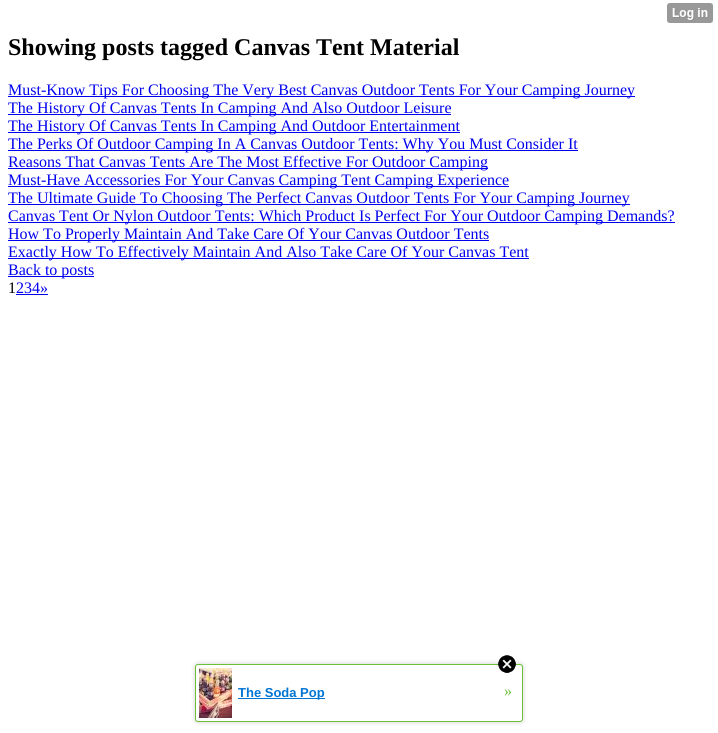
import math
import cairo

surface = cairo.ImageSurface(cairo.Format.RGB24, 718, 733)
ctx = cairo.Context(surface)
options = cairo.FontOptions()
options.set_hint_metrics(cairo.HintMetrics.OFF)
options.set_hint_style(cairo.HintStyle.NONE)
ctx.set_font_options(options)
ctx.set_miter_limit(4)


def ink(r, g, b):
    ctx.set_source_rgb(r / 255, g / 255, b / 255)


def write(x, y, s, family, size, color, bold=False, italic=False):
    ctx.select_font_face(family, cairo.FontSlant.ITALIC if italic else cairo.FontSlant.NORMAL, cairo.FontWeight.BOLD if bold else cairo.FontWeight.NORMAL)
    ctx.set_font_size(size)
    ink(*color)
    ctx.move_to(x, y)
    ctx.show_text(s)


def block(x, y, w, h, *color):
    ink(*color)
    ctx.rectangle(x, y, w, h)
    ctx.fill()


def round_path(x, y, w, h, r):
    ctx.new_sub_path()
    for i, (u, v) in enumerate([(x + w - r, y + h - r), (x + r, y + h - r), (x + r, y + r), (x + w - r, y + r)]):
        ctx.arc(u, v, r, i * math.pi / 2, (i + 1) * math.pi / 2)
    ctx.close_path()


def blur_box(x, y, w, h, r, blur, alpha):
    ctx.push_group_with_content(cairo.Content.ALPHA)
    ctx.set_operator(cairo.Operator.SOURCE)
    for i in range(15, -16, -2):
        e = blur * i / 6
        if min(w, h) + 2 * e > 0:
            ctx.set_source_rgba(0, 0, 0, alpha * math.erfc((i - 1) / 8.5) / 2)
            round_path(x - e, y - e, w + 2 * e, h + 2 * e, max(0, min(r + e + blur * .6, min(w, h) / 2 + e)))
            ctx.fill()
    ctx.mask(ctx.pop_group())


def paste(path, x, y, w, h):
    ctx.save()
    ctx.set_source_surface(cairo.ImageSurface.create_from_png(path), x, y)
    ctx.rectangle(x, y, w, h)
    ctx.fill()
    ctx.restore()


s1 = dict(family="Liberation Serif", size=24, color=(0, 0, 0), bold=True)
s2 = dict(family="Liberation Serif", size=16, color=(0, 0, 238))
s3 = dict(family="Liberation Serif", size=16, color=(0, 0, 0))
s4 = dict(family="Liberation Sans", size=13, color=(2, 116, 212), bold=True)
s5 = dict(family="Liberation Serif", size=16, color=(107, 193, 53))

ink(255, 255, 255)
ctx.paint()
paste("pic1.png", 667, 3, 46, 20)
write(8, 55, "Showing posts tagged Canvas Tent Material", **s1)
block(8, 96, 627, 1, 0, 0, 238)
write(8, 95, "Must-Know Tips For Choosing The Very Best Canvas Outdoor Tents For Your Camping Journey", **s2)
block(8, 114, 443, 1, 0, 0, 238)
write(8, 113, "The History Of Canvas Tents In Camping And Also Outdoor Leisure", **s2)
block(8, 132, 452, 1, 0, 0, 238)
write(8, 131, "The History Of Canvas Tents In Camping And Outdoor Entertainment", **s2)
block(8, 150, 570, 1, 0, 0, 238)
write(8, 149, "The Perks Of Outdoor Camping In A Canvas Outdoor Tents: Why You Must Consider It", **s2)
block(8, 168, 480, 1, 0, 0, 238)
write(8, 167, "Reasons That Canvas Tents Are The Most Effective For Outdoor Camping", **s2)
block(8, 186, 501, 1, 0, 0, 238)
write(8, 185, "Must-Have Accessories For Your Canvas Camping Tent Camping Experience", **s2)
block(8, 204, 622, 1, 0, 0, 238)
write(8, 203, "The Ultimate Guide To Choosing The Perfect Canvas Outdoor Tents For Your Camping Journey", **s2)
block(8, 222, 667, 1, 0, 0, 238)
write(8, 221, "Canvas Tent Or Nylon Outdoor Tents: Which Product Is Perfect For Your Outdoor Camping Demands?", **s2)
block(8, 240, 481, 1, 0, 0, 238)
write(8, 239, "How To Properly Maintain And Take Care Of Your Canvas Outdoor Tents", **s2)
block(8, 258, 521, 1, 0, 0, 238)
write(8, 257, "Exactly How To Effectively Maintain And Also Take Care Of Your Canvas Tent", **s2)
block(8, 276, 86, 1, 0, 0, 238)
write(8, 275, "Back to posts", **s2)
write(8, 293, "1", **s3)
write(16, 293, "234»", **s2)
block(16, 294, 32, 1, 0, 0, 238)
ink(0, 0, 0)
blur_box(195, 664, 328, 58, 3, 2.5, 0.2)
ink(255, 255, 255)
round_path(195.5, 664.5, 327, 57, 2.5)
ctx.fill_preserve()
ink(107, 193, 53)
ctx.set_line_width(1)
ctx.stroke()
paste("pic2.png", 498, 655, 18, 18)
paste("pic3.png", 199, 668, 33, 50)
block(238, 698, 87, 1, 2, 116, 212)
write(238, 697, "The Soda Pop", **s4)
write(504, 696, "»", **s5)
surface.write_to_png("screenshot.png")
